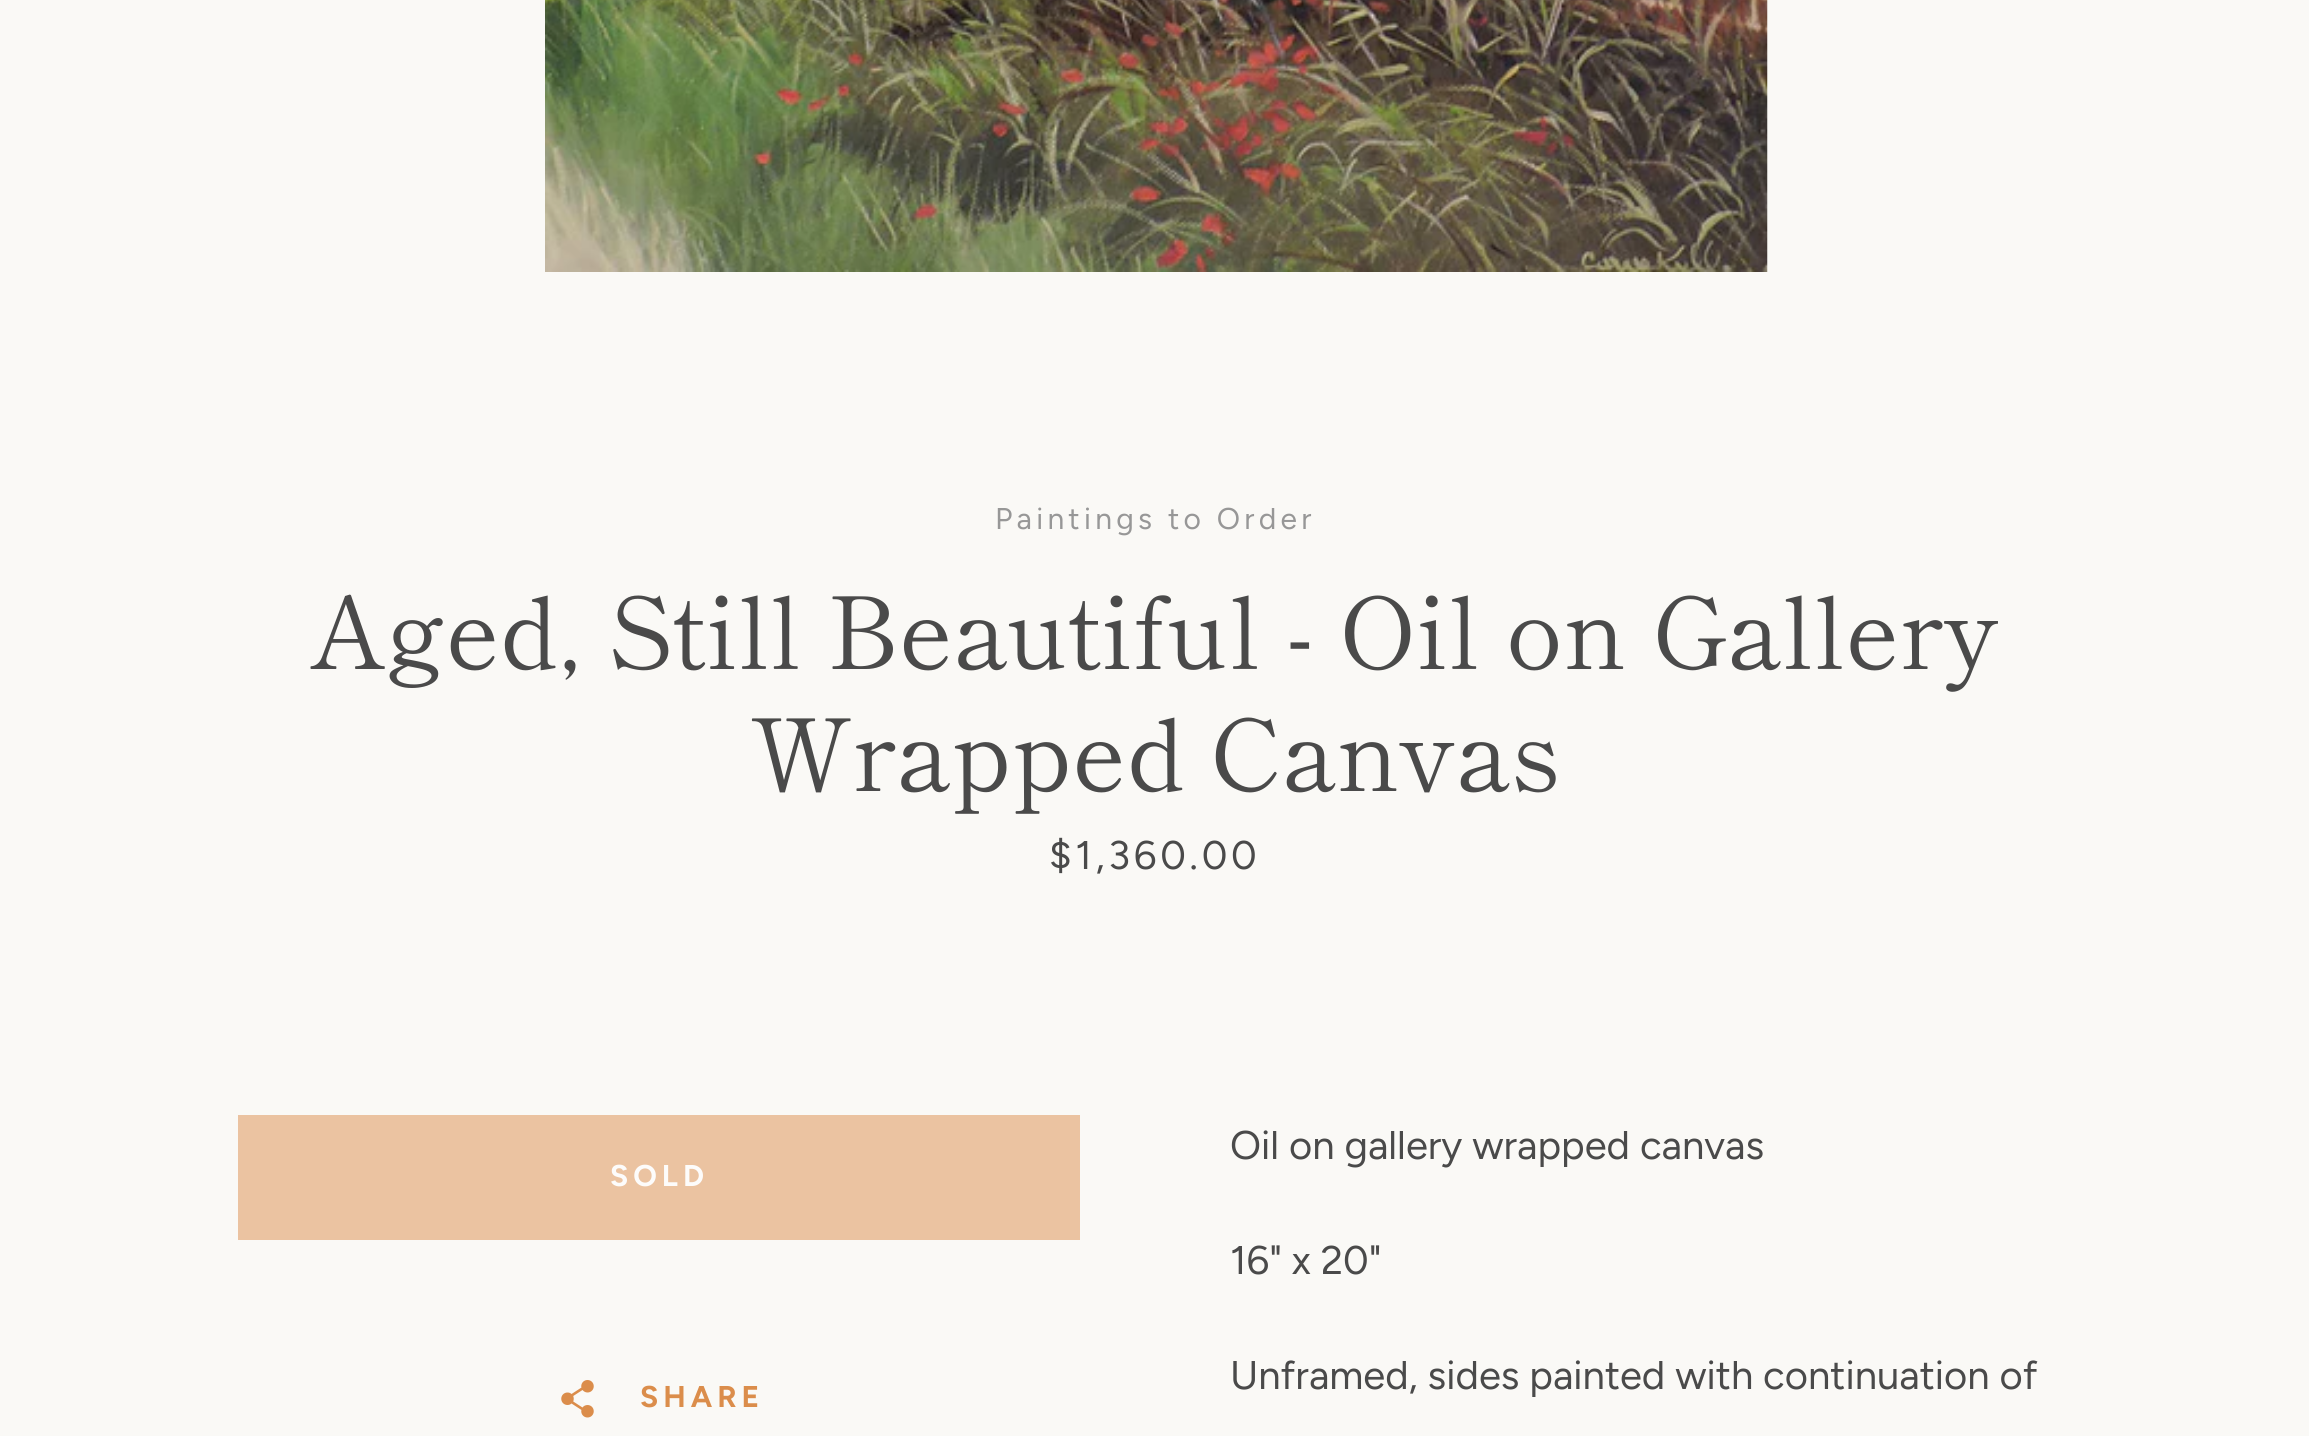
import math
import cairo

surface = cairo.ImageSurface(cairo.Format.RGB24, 2309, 1436)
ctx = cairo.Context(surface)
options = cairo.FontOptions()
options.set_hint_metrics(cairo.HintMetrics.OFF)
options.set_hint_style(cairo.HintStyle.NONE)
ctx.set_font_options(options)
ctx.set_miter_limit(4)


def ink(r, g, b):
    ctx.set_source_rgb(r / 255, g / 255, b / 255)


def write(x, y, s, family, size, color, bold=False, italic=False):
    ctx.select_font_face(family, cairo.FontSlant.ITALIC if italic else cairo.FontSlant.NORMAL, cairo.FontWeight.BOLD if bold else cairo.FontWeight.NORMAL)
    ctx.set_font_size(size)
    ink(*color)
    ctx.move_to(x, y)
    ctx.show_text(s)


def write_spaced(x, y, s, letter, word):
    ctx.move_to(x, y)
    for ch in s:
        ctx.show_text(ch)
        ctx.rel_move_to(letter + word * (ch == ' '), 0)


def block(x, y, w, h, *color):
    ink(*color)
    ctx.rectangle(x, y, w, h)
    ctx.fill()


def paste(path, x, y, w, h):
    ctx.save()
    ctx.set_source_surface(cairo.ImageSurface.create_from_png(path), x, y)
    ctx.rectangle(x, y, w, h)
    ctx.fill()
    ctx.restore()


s1 = dict(family="Shippori Mincho", size=100, color=(74, 74, 74))
s2 = dict(family="Figtree", size=40, color=(74, 74, 74))

ink(250, 249, 246)
ctx.paint()
paste("pic1.png", 545, 0, 1223, 272)
ctx.select_font_face("Figtree")
ctx.set_font_size(30)
ink(151, 151, 151)
write_spaced(995, 529, "Paintings to Order", 4.25, 0)
write(310, 669, "Aged, Still Beautiful - Oil on Gallery", **s1)
write(750, 791, "Wrapped Canvas", **s1)
ctx.select_font_face("Figtree")
ctx.set_font_size(40)
write_spaced(1049, 869, "$1,360.00", 3.75, 0)
block(238, 1115, 842, 125, 235, 195, 161)
ctx.select_font_face("Figtree", cairo.FontSlant.NORMAL, cairo.FontWeight.BOLD)
ctx.set_font_size(30)
ink(253, 252, 251)
write_spaced(610, 1186, "SOLD", 5, 0)
paste("pic2.png", 561, 1380, 33, 38)
ink(219, 141, 75)
write_spaced(640, 1407, "SHARE", 5, 0)
write(1230, 1159, "Oil on gallery wrapped canvas", **s2)
write(1230, 1274, "16\" x 20\"", **s2)
write(1230, 1389, "Unframed, sides painted with continuation of", **s2)
surface.write_to_png("screenshot.png")
